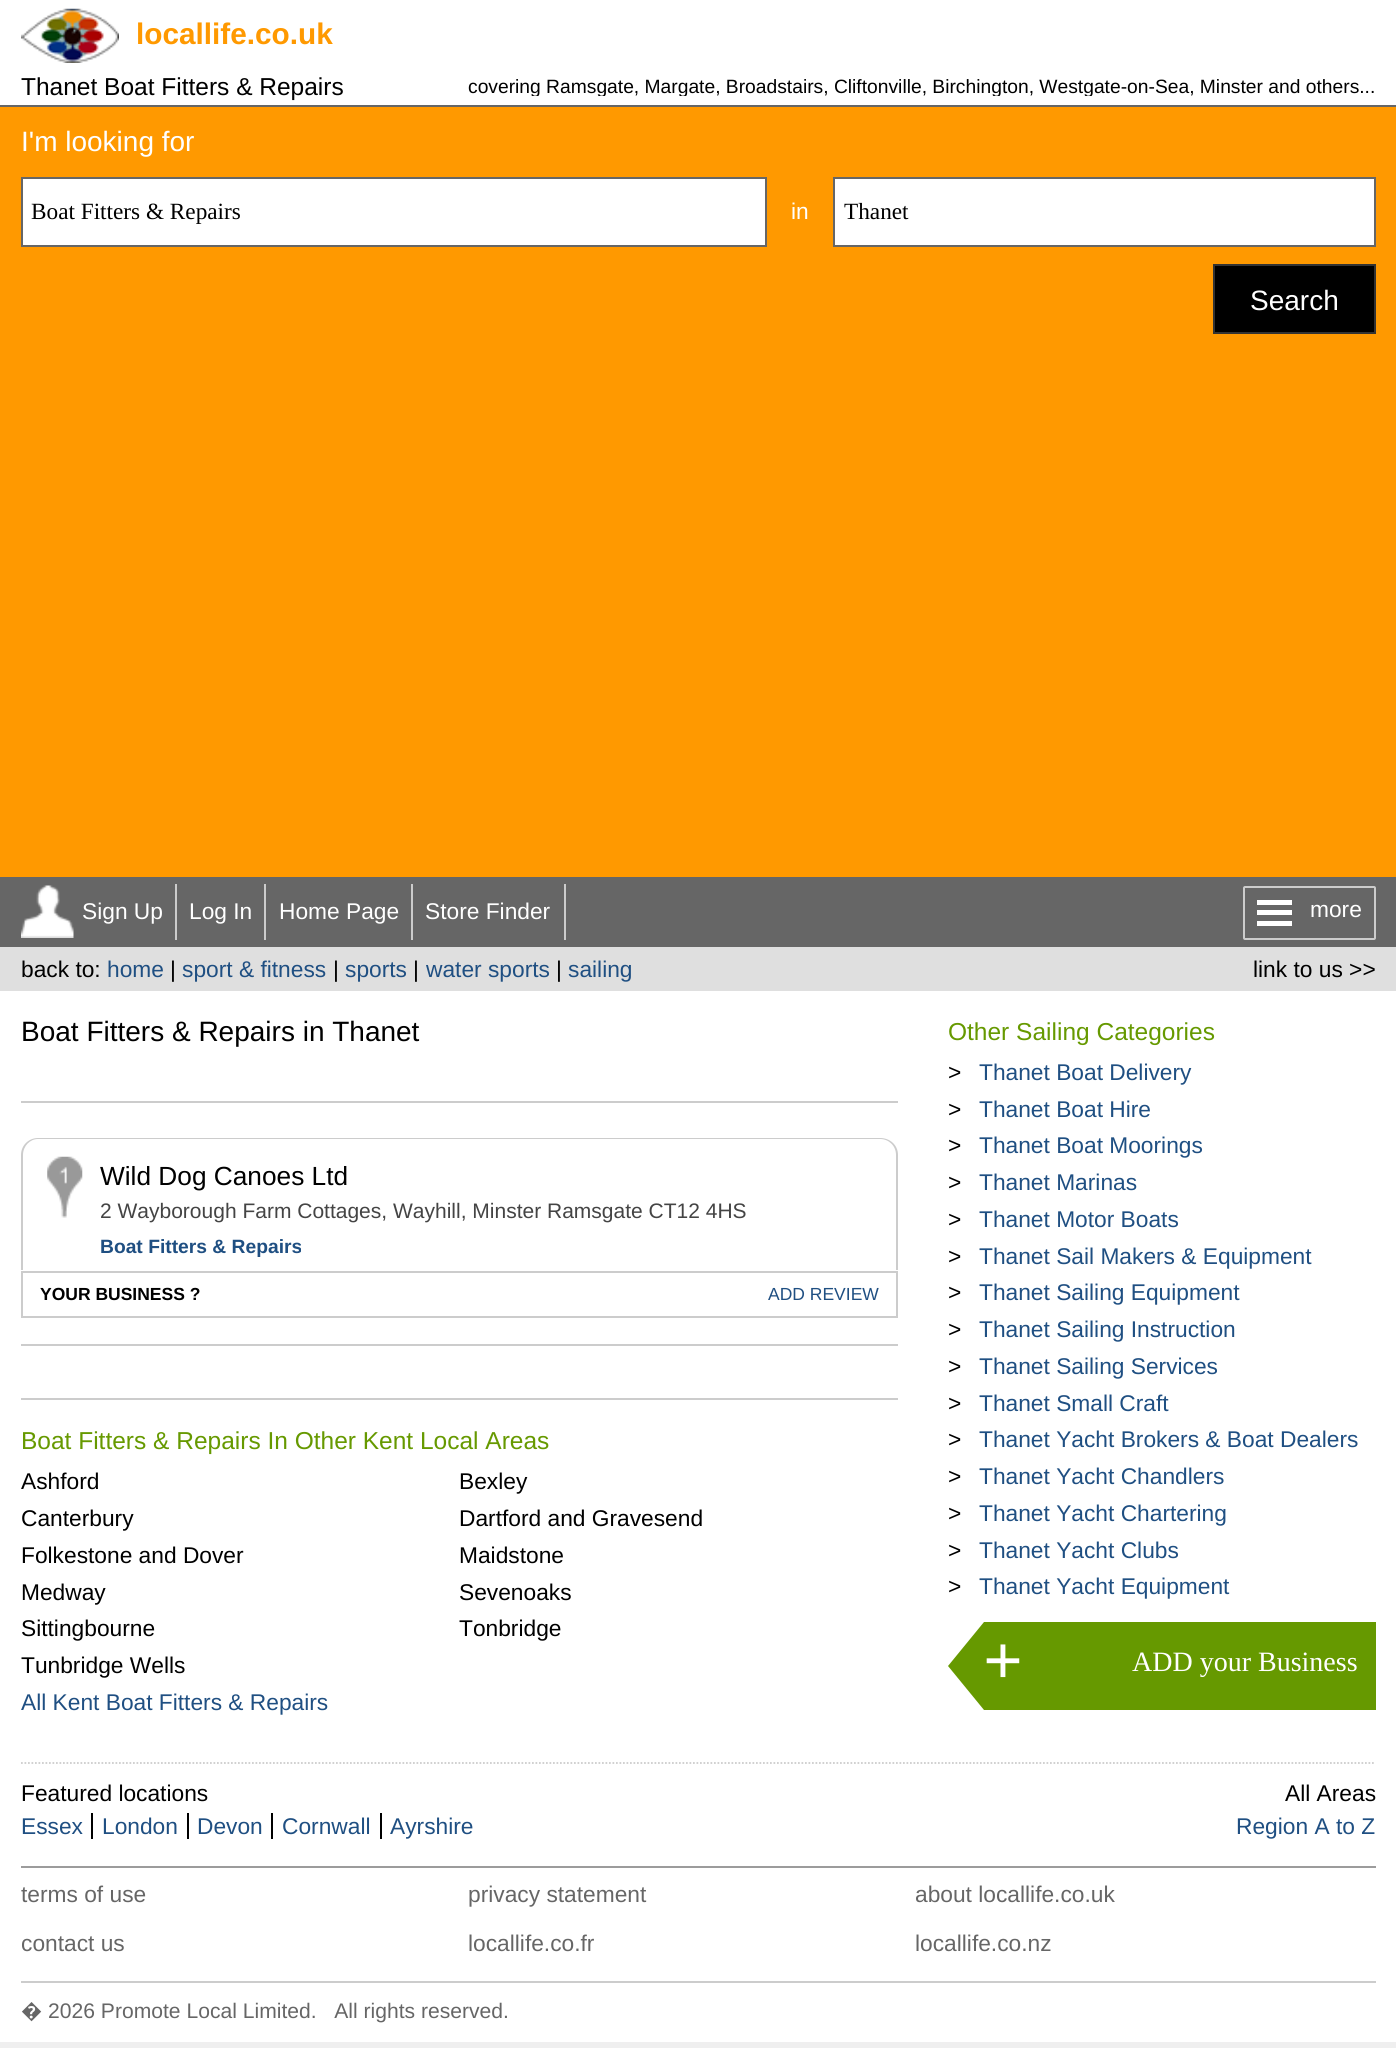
import math
import cairo

surface = cairo.ImageSurface(cairo.Format.RGB24, 1396, 2048)
ctx = cairo.Context(surface)
options = cairo.FontOptions()
options.set_hint_metrics(cairo.HintMetrics.OFF)
options.set_hint_style(cairo.HintStyle.NONE)
ctx.set_font_options(options)
ctx.set_miter_limit(4)


def ink(r, g, b):
    ctx.set_source_rgb(r / 255, g / 255, b / 255)


def write(x, y, s, family, size, color, bold=False, italic=False):
    ctx.select_font_face(family, cairo.FontSlant.ITALIC if italic else cairo.FontSlant.NORMAL, cairo.FontWeight.BOLD if bold else cairo.FontWeight.NORMAL)
    ctx.set_font_size(size)
    ink(*color)
    ctx.move_to(x, y)
    ctx.show_text(s)


def block(x, y, w, h, *color):
    ink(*color)
    ctx.rectangle(x, y, w, h)
    ctx.fill()


def round_path(x, y, w, h, r):
    ctx.new_sub_path()
    for i, (u, v) in enumerate([(x + w - r, y + h - r), (x + r, y + h - r), (x + r, y + r), (x + w - r, y + r)]):
        ctx.arc(u, v, r, i * math.pi / 2, (i + 1) * math.pi / 2)
    ctx.close_path()


def paste(path, x, y, w, h):
    ctx.save()
    ctx.set_source_surface(cairo.ImageSurface.create_from_png(path), x, y)
    ctx.rectangle(x, y, w, h)
    ctx.fill()
    ctx.restore()


s1 = dict(family="Liberation Sans", size=29.75, color=(255, 153, 0), bold=True)
s2 = dict(family="Liberation Sans", size=24.5, color=(0, 0, 0))
s3 = dict(family="Liberation Sans", size=19.25, color=(0, 0, 0))
s4 = dict(family="Liberation Sans", size=28, color=(255, 255, 255))
s5 = dict(family="Liberation Serif", size=23.25, color=(0, 0, 0))
s6 = dict(family="Liberation Sans", size=22.75, color=(255, 255, 255))
s7 = dict(family="Liberation Sans", size=22.75, color=(0, 0, 0))
s8 = dict(family="Liberation Sans", size=22.75, color=(31, 79, 130))
s9 = dict(family="Liberation Sans", size=28, color=(0, 0, 0))
s10 = dict(family="Liberation Sans", size=26.25, color=(0, 0, 0))
s11 = dict(family="Liberation Sans", size=21, color=(68, 68, 68))
s12 = dict(family="Liberation Sans", size=19.25, color=(31, 79, 130), bold=True)
s13 = dict(family="Liberation Sans", size=17.5, color=(0, 0, 0), bold=True)
s14 = dict(family="Liberation Sans", size=17.5, color=(31, 79, 130))
s15 = dict(family="Liberation Sans", size=24.5, color=(102, 153, 0))
s16 = dict(family="Liberation Serif", size=70, color=(255, 255, 255), bold=True)
s17 = dict(family="Liberation Serif", size=28, color=(255, 255, 255))
s18 = dict(family="Liberation Sans", size=22.75, color=(102, 102, 102))
s19 = dict(family="Noto Sans", size=21.1, color=(102, 102, 102))
s20 = dict(family="Liberation Sans", size=21.1, color=(102, 102, 102))

ink(239, 239, 239)
ctx.paint()
block(0, 0, 1396, 2042, 255, 255, 255)
paste("pic1.png", 21, 8, 98, 55)
write(136, 44, "locallife.co.uk", **s1)
write(21, 95, "Thanet Boat Fitters & Repairs", **s2)
ctx.save()
ctx.rectangle(448, 72, 928, 24)
ctx.clip()
write(468, 93, "covering Ramsgate, Margate, Broadstairs, Cliftonville, Birchington, Westgate-on-Sea, Minster and others...", **s3)
ctx.restore()
block(0, 107, 1396, 770, 255, 153, 0)
block(0, 105, 1396, 2, 102, 102, 102)
write(21, 151, "I'm looking for", **s4)
ctx.rectangle(22, 178, 744, 68)
ctx.fill_preserve()
ink(102, 102, 102)
ctx.stroke()
write(31, 219, "Boat Fitters & Repairs", **s5)
write(791, 219, "in", **s6)
ctx.rectangle(834, 178, 541, 68)
ctx.fill_preserve()
ink(102, 102, 102)
ctx.stroke()
write(844, 219, "Thanet", **s5)
ctx.rectangle(1214, 265, 161, 68)
ctx.fill_preserve()
ink(51, 51, 51)
ctx.stroke()
write(1250, 310, "Search", **s4)
block(0, 877, 1396, 70, 102, 102, 102)
paste("pic2.png", 21, 885, 53, 53)
block(175, 884, 2, 56, 204, 204, 204)
write(82, 919, "Sign Up", **s6)
block(264, 884, 2, 56, 204, 204, 204)
write(189, 919, "Log In", **s6)
block(411, 884, 2, 56, 204, 204, 204)
write(279, 919, "Home Page", **s6)
block(564, 884, 2, 56, 204, 204, 204)
write(425, 919, "Store Finder", **s6)
round_path(1244, 887, 131, 52, 1)
ink(204, 204, 204)
ctx.stroke()
block(1257, 900, 35, 5, 255, 255, 255)
block(1257, 910, 35, 5, 255, 255, 255)
block(1257, 921, 35, 5, 255, 255, 255)
write(1310, 917, "more", **s6)
block(0, 947, 1396, 44, 223, 223, 223)
write(21, 977, "back to:", **s7)
write(107, 977, "home", **s8)
write(170, 977, "|", **s7)
write(182, 977, "sport & fitness", **s8)
write(333, 977, "|", **s7)
write(345, 977, "sports", **s8)
write(413, 977, "|", **s7)
write(426, 977, "water sports", **s8)
write(556, 977, "|", **s7)
write(568, 977, "sailing", **s8)
write(1253, 977, "link to us >>", **s7)
write(21, 1041, "Boat Fitters & Repairs in Thanet", **s9)
block(21, 1101, 877, 2, 204, 204, 204)
ctx.set_fill_rule(cairo.FillRule.EVEN_ODD)
ctx.new_path()
ctx.move_to(38, 1138)
ctx.line_to(880, 1138)
ctx.curve_to(890, 1138, 898, 1145, 898, 1155)
ctx.line_to(898, 1270)
ctx.line_to(21, 1270)
ctx.line_to(21, 1155)
ctx.curve_to(21, 1145, 29, 1138, 38, 1138)
ctx.close_path()
ctx.move_to(38, 1139)
ctx.line_to(880, 1139)
ctx.curve_to(889, 1139, 896, 1146, 896, 1155)
ctx.line_to(896, 1270)
ctx.line_to(23, 1270)
ctx.line_to(23, 1155)
ctx.curve_to(23, 1146, 30, 1139, 38, 1139)
ctx.close_path()
ctx.fill()
paste("pic3.png", 47, 1156, 36, 62)
write(100, 1185, "Wild Dog Canoes Ltd", **s10)
write(100, 1218, "2 Wayborough Farm Cottages, Wayhill, Minster Ramsgate CT12 4HS", **s11)
write(100, 1253, "Boat Fitters & Repairs", **s12)
ctx.rectangle(22, 1272, 875, 45)
ink(204, 204, 204)
ctx.stroke()
write(40, 1300, "YOUR BUSINESS ?", **s13)
write(768, 1300, "ADD REVIEW", **s14)
block(21, 1344, 877, 2, 204, 204, 204)
block(21, 1398, 877, 2, 204, 204, 204)
write(21, 1449, "Boat Fitters & Repairs In Other Kent Local Areas", **s15)
write(21, 1489, "Ashford", **s7)
write(459, 1489, "Bexley", **s7)
write(21, 1526, "Canterbury", **s7)
write(459, 1526, "Dartford and Gravesend", **s7)
write(21, 1563, "Folkestone and Dover", **s7)
write(459, 1563, "Maidstone", **s7)
write(21, 1600, "Medway", **s7)
write(459, 1600, "Sevenoaks", **s7)
write(21, 1636, "Sittingbourne", **s7)
write(459, 1636, "Tonbridge", **s7)
write(21, 1673, "Tunbridge Wells", **s7)
write(21, 1710, "All Kent Boat Fitters & Repairs", **s8)
write(948, 1040, "Other Sailing Categories", **s15)
write(948, 1080, ">", **s7)
write(979, 1080, "Thanet Boat Delivery", **s8)
write(948, 1117, ">", **s7)
write(979, 1117, "Thanet Boat Hire", **s8)
write(948, 1153, ">", **s7)
write(979, 1153, "Thanet Boat Moorings", **s8)
write(948, 1190, ">", **s7)
write(979, 1190, "Thanet Marinas", **s8)
write(948, 1227, ">", **s7)
write(979, 1227, "Thanet Motor Boats", **s8)
write(948, 1264, ">", **s7)
write(979, 1264, "Thanet Sail Makers & Equipment", **s8)
write(948, 1300, ">", **s7)
write(979, 1300, "Thanet Sailing Equipment", **s8)
write(948, 1337, ">", **s7)
write(979, 1337, "Thanet Sailing Instruction", **s8)
write(948, 1374, ">", **s7)
write(979, 1374, "Thanet Sailing Services", **s8)
write(948, 1411, ">", **s7)
write(979, 1411, "Thanet Small Craft", **s8)
write(948, 1447, ">", **s7)
write(979, 1447, "Thanet Yacht Brokers & Boat Dealers", **s8)
write(948, 1484, ">", **s7)
write(979, 1484, "Thanet Yacht Chandlers", **s8)
write(948, 1521, ">", **s7)
write(979, 1521, "Thanet Yacht Chartering", **s8)
write(948, 1558, ">", **s7)
write(979, 1558, "Thanet Yacht Clubs", **s8)
write(948, 1594, ">", **s7)
write(979, 1594, "Thanet Yacht Equipment", **s8)
ink(102, 153, 0)
ctx.set_fill_rule(cairo.FillRule.WINDING)
ctx.new_path()
ctx.move_to(984, 1622)
ctx.line_to(984, 1710)
ctx.line_to(948, 1666)
ctx.close_path()
ctx.fill()
block(984, 1622, 392, 88, 102, 153, 0)
write(983, 1684, "+", **s16)
write(1132, 1671, "ADD your Business", **s17)
ctx.new_path()
ctx.move_to(21, 1763)
ctx.line_to(1375.5, 1763)
ink(204, 204, 204)
ctx.set_line_width(1.8)
ctx.set_dash([1.75, 1.75])
ctx.stroke()
write(21, 1801, "Featured locations", **s7)
block(91, 1813, 2, 26, 0, 0, 0)
write(21, 1834, "Essex", **s8)
block(187, 1813, 2, 26, 0, 0, 0)
write(102, 1834, "London", **s8)
block(271, 1813, 2, 26, 0, 0, 0)
write(197, 1834, "Devon", **s8)
block(380, 1813, 2, 26, 0, 0, 0)
write(282, 1834, "Cornwall", **s8)
write(390, 1834, "Ayrshire", **s8)
write(1285, 1801, "All Areas", **s7)
write(1236, 1834, "Region A to Z", **s8)
block(21, 1866, 1355, 2, 156, 156, 156)
write(21, 1902, "terms of use", **s18)
write(468, 1902, "privacy statement", **s18)
write(915, 1902, "about locallife.co.uk", **s18)
write(21, 1951, "contact us", **s18)
write(468, 1951, "locallife.co.fr", **s18)
write(915, 1951, "locallife.co.nz", **s18)
block(21, 1981, 1355, 2, 204, 204, 204)
write(21, 2018, "�", **s19)
write(48, 2018, "2026 Promote Local Limited.   All rights reserved.", **s20)
surface.write_to_png("screenshot.png")
